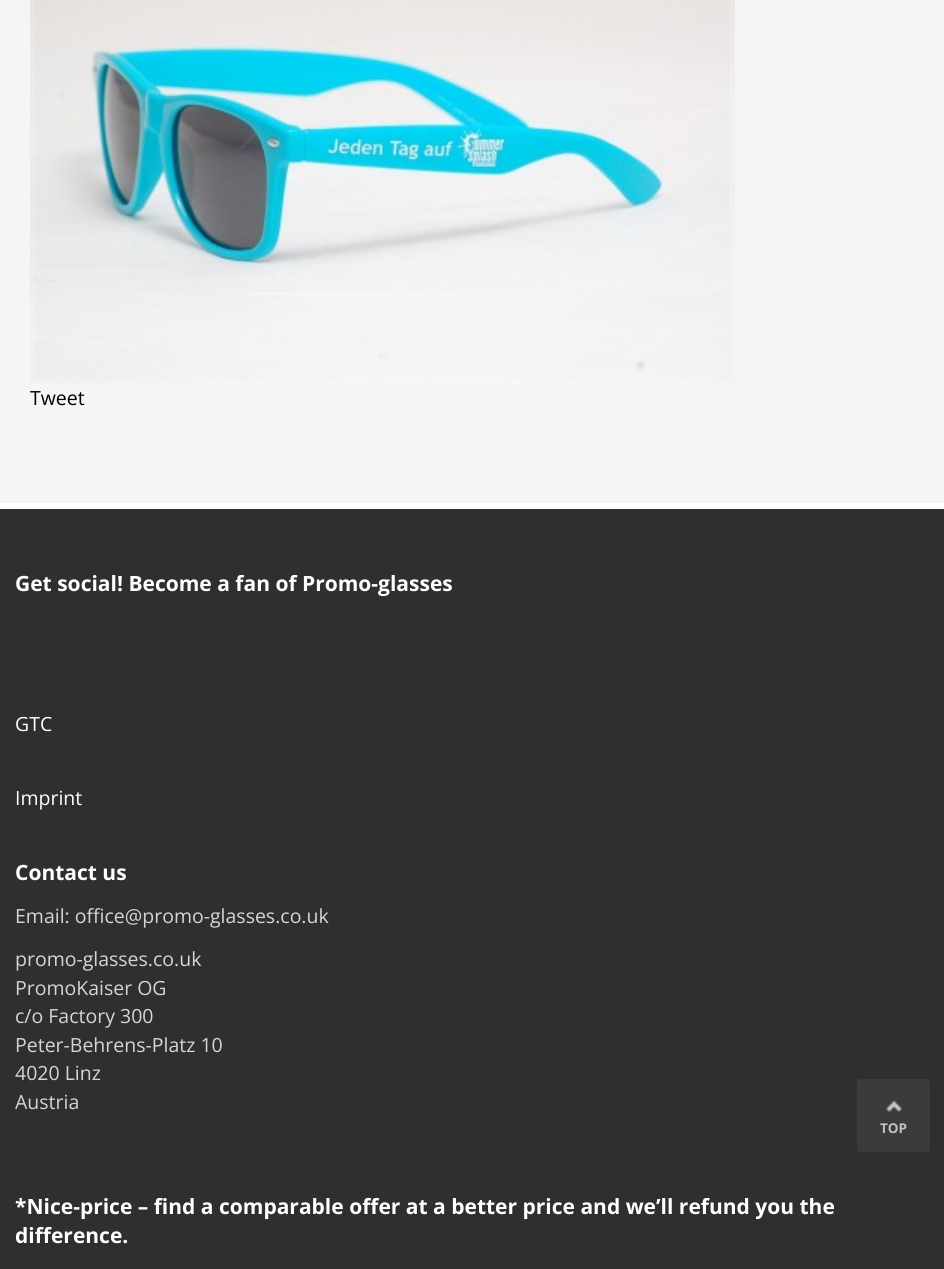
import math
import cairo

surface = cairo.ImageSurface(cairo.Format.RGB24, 944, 1269)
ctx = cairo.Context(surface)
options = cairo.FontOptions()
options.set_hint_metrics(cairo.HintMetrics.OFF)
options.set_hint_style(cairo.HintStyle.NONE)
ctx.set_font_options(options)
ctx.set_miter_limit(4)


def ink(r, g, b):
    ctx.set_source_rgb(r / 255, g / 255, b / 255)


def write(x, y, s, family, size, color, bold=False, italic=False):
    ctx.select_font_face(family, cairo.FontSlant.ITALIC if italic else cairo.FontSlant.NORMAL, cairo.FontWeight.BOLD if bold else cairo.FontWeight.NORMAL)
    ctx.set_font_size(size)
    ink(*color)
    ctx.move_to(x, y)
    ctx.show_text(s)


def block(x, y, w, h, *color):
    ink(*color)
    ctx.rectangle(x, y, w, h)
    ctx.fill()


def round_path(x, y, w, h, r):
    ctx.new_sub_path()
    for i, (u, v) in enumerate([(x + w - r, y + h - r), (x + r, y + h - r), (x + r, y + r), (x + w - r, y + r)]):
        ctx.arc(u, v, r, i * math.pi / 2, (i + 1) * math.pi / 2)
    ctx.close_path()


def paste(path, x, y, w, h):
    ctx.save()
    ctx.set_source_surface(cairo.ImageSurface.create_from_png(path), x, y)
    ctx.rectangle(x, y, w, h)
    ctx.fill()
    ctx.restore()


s1 = dict(family="Open Sans", size=19.5, color=(0, 0, 0))
s2 = dict(family="Open Sans", size=21, color=(255, 255, 255), bold=True)
s3 = dict(family="Open Sans", size=19.5, color=(255, 255, 255))
s4 = dict(family="Open Sans", size=19.5, color=(213, 213, 213))
s5 = dict(family="Open Sans", size=13.5, color=(193, 193, 193), bold=True)

ink(245, 245, 245)
ctx.paint()
paste("pic1.png", 30, 0, 705, 384)
round_path(32.5, -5.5, 700, 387, 0.5)
ctx.set_source_rgba(1, 1, 1, 0.15)
ctx.set_line_width(5)
ctx.stroke()
write(30, 405, "Tweet", **s1)
block(0, 509, 944, 760, 47, 47, 47)
block(0, 503, 944, 6, 255, 255, 255)
write(15, 591, "Get social! Become a fan of Promo-glasses", **s2)
write(15, 731, "GTC", **s3)
write(15, 805, "Imprint", **s3)
write(15, 880, "Contact us", **s2)
write(15, 923, "Email: office@promo-glasses.co.uk", **s4)
write(15, 966, "promo-glasses.co.uk", **s4)
write(15, 995, "PromoKaiser OG", **s4)
write(15, 1023, "c/o Factory 300", **s4)
write(15, 1052, "Peter-Behrens-Platz 10", **s4)
write(15, 1080, "4020 Linz", **s4)
write(15, 1109, "Austria", **s4)
write(15, 1214, "*Nice-price – find a comparable offer at a better price and we’ll refund you the", **s2)
write(15, 1243, "difference.", **s2)
ink(59, 59, 59)
round_path(857, 1079, 73, 73, 3)
ctx.fill()
paste("pic2.png", 886, 1101, 16, 11)
write(880, 1133, "TOP", **s5)
surface.write_to_png("screenshot.png")
